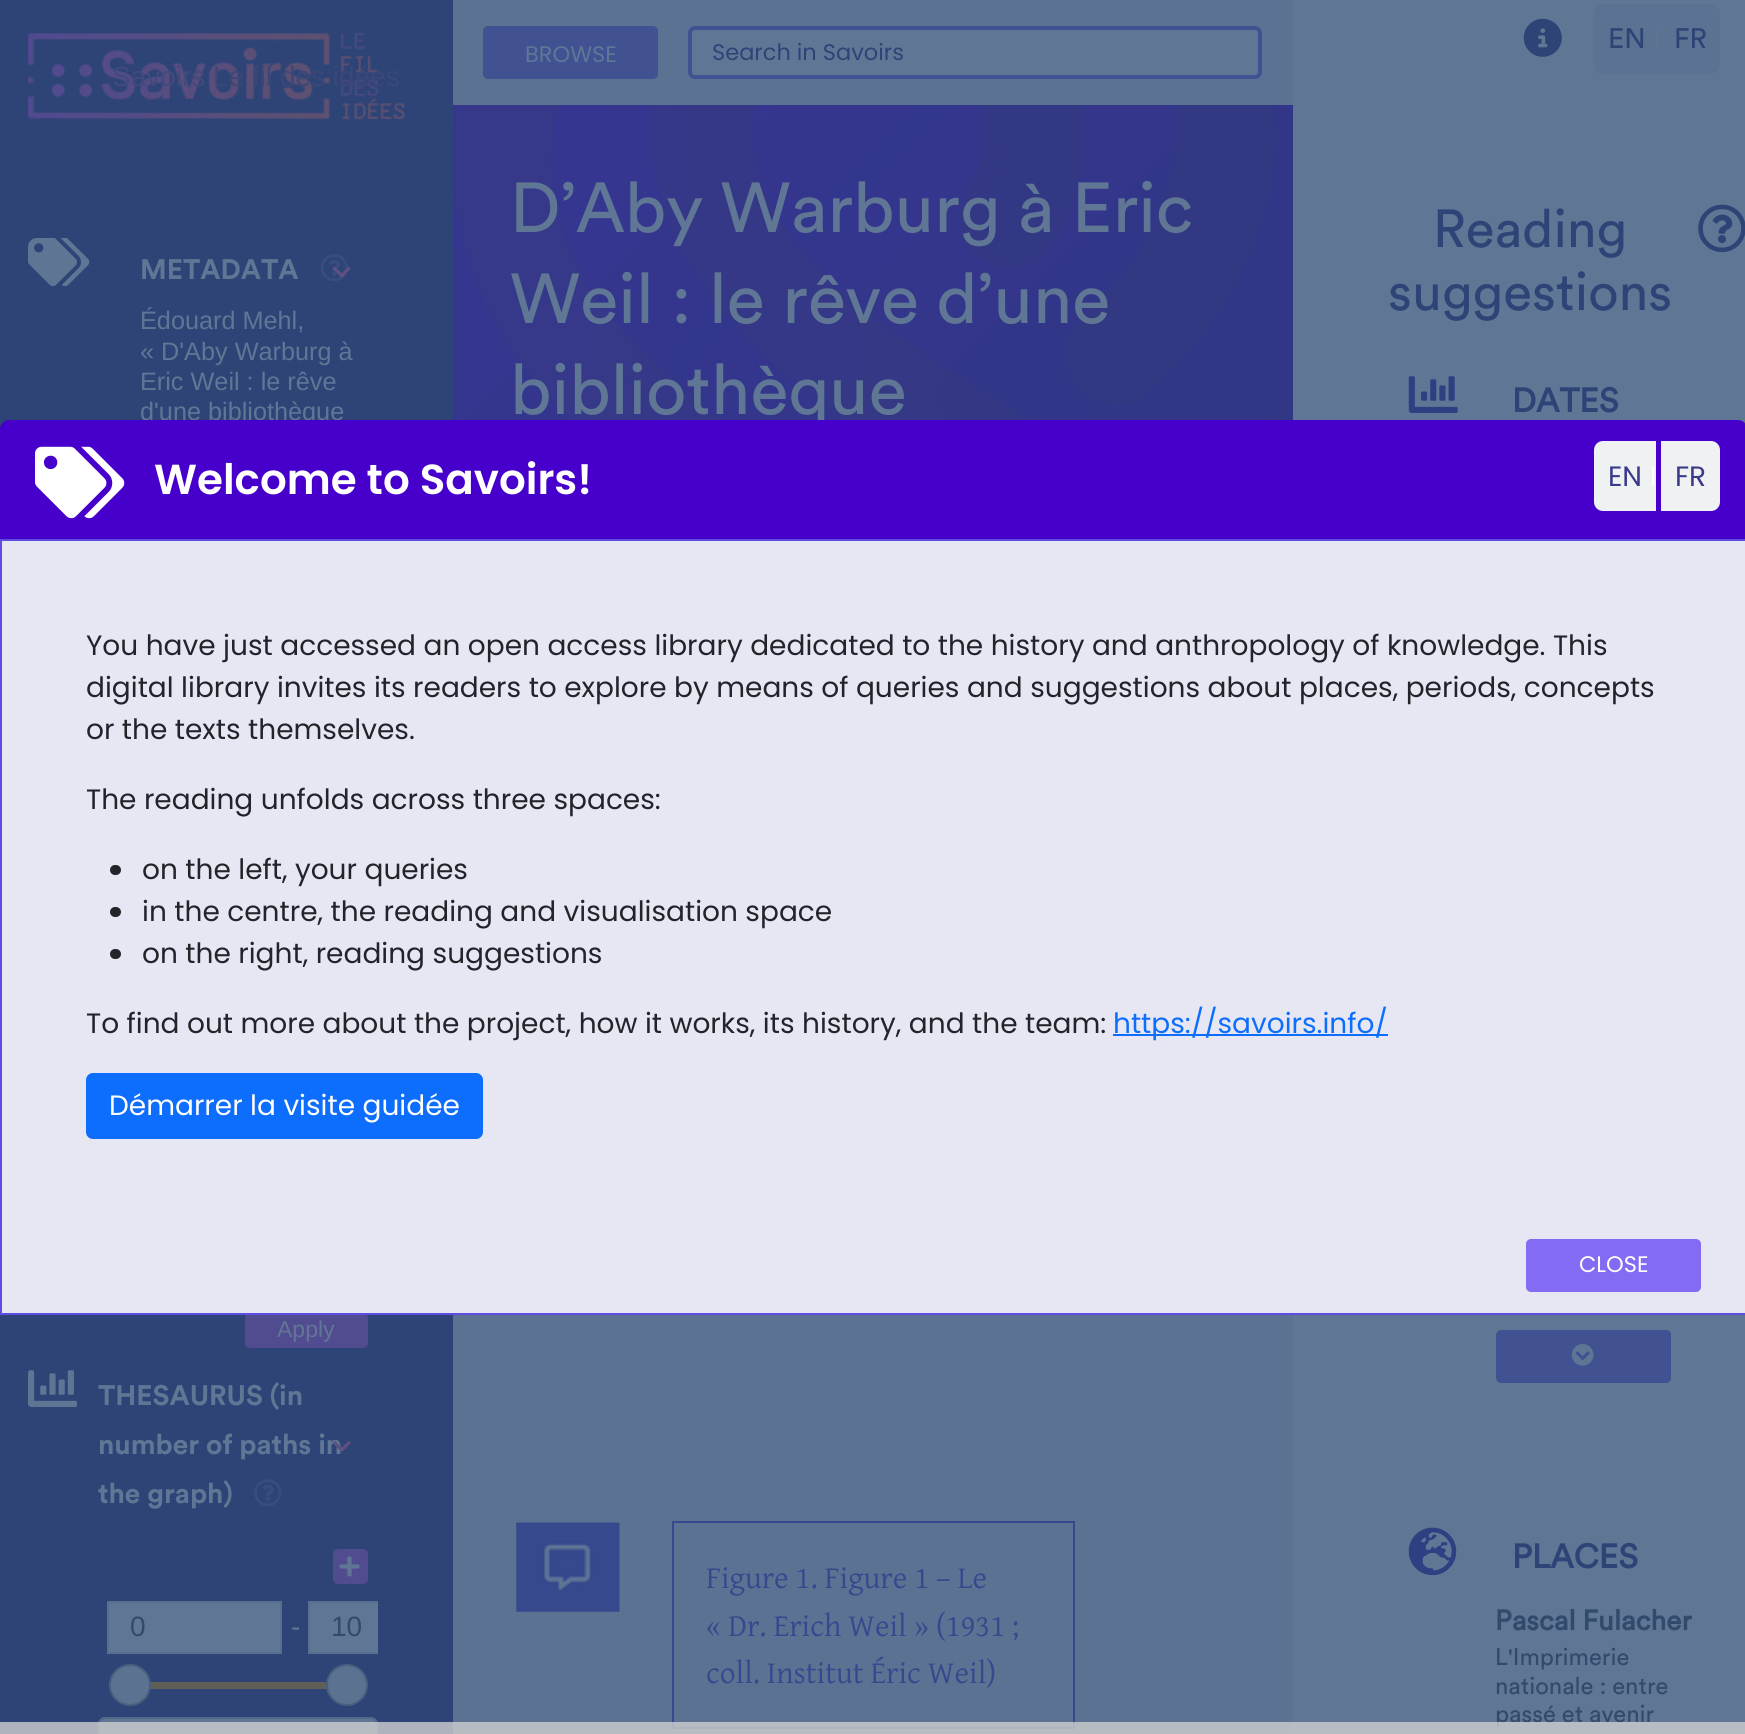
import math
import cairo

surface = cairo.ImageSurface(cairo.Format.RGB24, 1745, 1734)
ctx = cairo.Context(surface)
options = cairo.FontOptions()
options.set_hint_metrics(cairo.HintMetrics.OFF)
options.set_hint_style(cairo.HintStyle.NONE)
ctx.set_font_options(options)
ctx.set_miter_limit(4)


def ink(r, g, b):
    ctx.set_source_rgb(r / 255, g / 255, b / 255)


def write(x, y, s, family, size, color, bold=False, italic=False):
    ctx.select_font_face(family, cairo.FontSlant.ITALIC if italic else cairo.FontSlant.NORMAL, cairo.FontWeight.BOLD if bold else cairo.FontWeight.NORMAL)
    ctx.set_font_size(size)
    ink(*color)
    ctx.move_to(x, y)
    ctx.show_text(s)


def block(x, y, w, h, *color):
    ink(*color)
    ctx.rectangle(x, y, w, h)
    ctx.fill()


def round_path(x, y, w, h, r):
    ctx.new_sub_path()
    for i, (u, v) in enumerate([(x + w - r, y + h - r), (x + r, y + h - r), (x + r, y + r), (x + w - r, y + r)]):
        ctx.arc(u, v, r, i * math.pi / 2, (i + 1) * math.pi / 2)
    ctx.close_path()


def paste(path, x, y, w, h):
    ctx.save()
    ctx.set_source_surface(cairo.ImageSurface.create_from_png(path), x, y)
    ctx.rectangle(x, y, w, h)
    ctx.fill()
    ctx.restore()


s1 = dict(family="Liberation Sans", size=28, color=(65, 73, 125))
s2 = dict(family="Liberation Sans", size=28, color=(58, 71, 119))
s3 = dict(family="Circular", size=28, color=(96, 118, 149), bold=True)
s4 = dict(family="Liberation Sans", size=25.25, color=(96, 118, 149))
s5 = dict(family="Liberation Sans", size=23, color=(96, 118, 149))
s6 = dict(family="Liberation Sans", size=28, color=(50, 74, 107))
s7 = dict(family="Liberation Sans", size=28, color=(96, 118, 149))
s8 = dict(family="Poppins", size=22.5, color=(96, 118, 149))
s9 = dict(family="Poppins", size=22.5, color=(46, 68, 119))
s10 = dict(family="Circular", size=70, color=(96, 118, 149))
s11 = dict(family="Gentium Plus", size=31.5, color=(55, 73, 142))
s12 = dict(family="Circular", size=23.75, color=(50, 74, 107))
s13 = dict(family="Circular", size=28, color=(46, 68, 119))
s14 = dict(family="Circular", size=53, color=(46, 68, 119))
s15 = dict(family="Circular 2", size=33.5, color=(46, 68, 119), bold=True)
s16 = dict(family="Circular 2", size=28, color=(50, 74, 107), bold=True)
s17 = dict(family="Poppins SemiBold", size=42, color=(255, 255, 255))
s18 = dict(family="Poppins", size=28, color=(57, 58, 138))
s19 = dict(family="Poppins", size=28, color=(33, 37, 41))
s20 = dict(family="Poppins", size=28, color=(13, 110, 253))
s21 = dict(family="Poppins", size=28, color=(255, 255, 255))
s22 = dict(family="Poppins", size=22.5, color=(255, 255, 255))

ink(96, 118, 149)
ctx.paint()
block(0, 0, 453, 1734, 46, 68, 119)
paste("pic1.png", 28, 33, 377, 86)
write(112, 86, "Savoirs", **s1)
write(213, 86, "Le fil des idées", **s2)
paste("pic2.png", 28, 238, 62, 49)
write(140, 279, "METADATA", **s3)
paste("pic3.png", 320, 254, 28, 28)
paste("pic4.png", 332, 266, 19, 12)
write(140, 329, "Édouard Mehl,", **s4)
write(140, 360, "« D'Aby Warburg à", **s4)
write(140, 390, "Eric Weil : le rêve", **s4)
write(140, 420, "d'une bibliothèque", **s4)
ink(81, 75, 144)
round_path(245, 1313, 123, 35, 5)
ctx.fill()
write(277, 1337, "Apply", **s5)
paste("pic5.png", 28, 1370, 49, 37)
write(98, 1405, "THESAURUS (in", **s3)
write(98, 1454, "number of paths in", **s3)
write(98, 1503, "the graph)", **s3)
paste("pic6.png", 254, 1479, 28, 28)
paste("pic7.png", 332, 1441, 19, 11)
ink(81, 75, 144)
round_path(333, 1549, 35, 35, 5)
ctx.fill()
paste("pic8.png", 339, 1556, 21, 21)
ink(96, 118, 149)
ctx.rectangle(108, 1602, 173, 51)
ctx.fill_preserve()
ink(88, 111, 144)
ctx.stroke()
write(130, 1636, "0", **s6)
write(291, 1636, "-", **s7)
block(310, 1603, 68, 49, 96, 118, 149)
ink(88, 111, 144)
ctx.new_path()
ctx.move_to(308, 1601)
ctx.line_to(308, 1654)
ctx.line_to(378, 1654)
ctx.line_to(378, 1652)
ctx.line_to(310, 1652)
ctx.line_to(310, 1603)
ctx.line_to(378, 1603)
ctx.line_to(378, 1601)
ctx.close_path()
ctx.fill()
write(331, 1636, "10", **s6)
block(150, 1682, 177, 7, 96, 95, 85)
ink(92, 114, 145)
ctx.new_path()
ctx.arc(130, 1685, 20, 0, 2 * math.pi)
ctx.fill_preserve()
ink(73, 95, 126)
ctx.stroke()
ink(92, 114, 145)
ctx.arc(347, 1685, 20, 0, 2 * math.pi)
ctx.fill_preserve()
ink(73, 95, 126)
ctx.stroke()
ink(96, 118, 149)
ctx.new_path()
ctx.move_to(105, 1719)
ctx.line_to(371, 1719)
ctx.curve_to(374, 1719, 376, 1721, 376, 1724)
ctx.line_to(376, 1734)
ctx.line_to(100, 1734)
ctx.line_to(100, 1724)
ctx.curve_to(100, 1721, 102, 1719, 105, 1719)
ctx.close_path()
ctx.fill()
round_path(99, 1718, 278, 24, 6)
ink(83, 107, 139)
ctx.stroke()
block(453, 0, 840, 1734, 92, 114, 146)
ink(65, 81, 146)
round_path(483, 26, 175, 53, 5)
ctx.fill()
write(525, 62, "BROWSE", **s8)
round_path(690, 28, 570, 49, 5)
ctx.fill_preserve()
ink(65, 81, 146)
ctx.set_line_width(4)
ctx.stroke()
write(712, 60, "Search in Savoirs", **s9)
gradient = cairo.LinearGradient(492, 67, 1255, 830)
gradient.add_color_stop_rgba(0, 0.208, 0.212, 0.573, 1)
gradient.add_color_stop_rgba(1, 0.188, 0.212, 0.506, 1)
ctx.set_source(gradient)
ctx.rectangle(453, 105, 840, 315)
ctx.fill()
paste("pic9.png", 453, 105, 827, 315)
write(510, 232, "D’Aby Warburg à Eric", **s10)
write(510, 323, "Weil : le rêve d’une", **s10)
write(510, 414, "bibliothèque", **s10)
block(672, 1521, 403, 2, 55, 73, 142)
block(1073, 1521, 2, 206, 55, 73, 142)
block(672, 1521, 2, 206, 55, 73, 142)
paste("pic10.png", 516, 1522, 104, 90)
write(706, 1588, "Figure 1. Figure 1 – Le", **s11)
write(706, 1636, "« Dr. Erich Weil » (1931 ;", **s11)
write(706, 1683, "coll. Institut Éric Weil)", **s11)
block(672, 1727, 403, 2, 55, 73, 142)
write(1495, 1722, "passé et avenir", **s12)
ctx.set_source_rgba(0.808, 0.808, 0.808, 0.8)
ctx.rectangle(0, 1722, 1745, 12)
ctx.fill()
paste("pic11.png", 1523, 18, 39, 39)
ink(92, 114, 146)
ctx.new_path()
ctx.move_to(1603, 4)
ctx.line_to(1659, 4)
ctx.line_to(1659, 74)
ctx.line_to(1603, 74)
ctx.curve_to(1598, 74, 1594, 70, 1594, 65)
ctx.line_to(1594, 13)
ctx.curve_to(1594, 8, 1598, 4, 1603, 4)
ctx.close_path()
ctx.fill()
write(1608, 48, "EN", **s13)
block(1656, 30, 2, 17, 96, 118, 149)
ink(92, 114, 146)
ctx.new_path()
ctx.move_to(1659, 4)
ctx.line_to(1711, 4)
ctx.curve_to(1716, 4, 1720, 8, 1720, 13)
ctx.line_to(1720, 65)
ctx.curve_to(1720, 70, 1716, 74, 1711, 74)
ctx.line_to(1659, 74)
ctx.close_path()
ctx.fill()
write(1674, 48, "FR", **s13)
write(1433, 247, "Reading", **s14)
write(1388, 310, "suggestions", **s14)
paste("pic12.png", 1698, 204, 47, 49)
paste("pic13.png", 1408, 376, 50, 37)
write(1512, 412, "DATES", **s15)
ink(65, 81, 146)
round_path(1496, 1330, 175, 53, 5)
ctx.fill()
paste("pic14.png", 1571, 1344, 23, 22)
paste("pic15.png", 1408, 1527, 49, 49)
write(1512, 1568, "PLACES", **s15)
write(1495, 1630, "Pascal Fulacher", **s16)
write(1495, 1665, "L'Imprimerie", **s12)
write(1495, 1694, "nationale : entre", **s12)
ink(71, 0, 203)
round_path(0, 420, 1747, 894, 9)
ctx.fill()
paste("pic16.png", 35, 446, 90, 73)
write(154, 494, "Welcome to Savoirs!", **s17)
ink(240, 241, 243)
ctx.new_path()
ctx.move_to(1603, 441)
ctx.line_to(1656, 441)
ctx.line_to(1656, 511)
ctx.line_to(1603, 511)
ctx.curve_to(1598, 511, 1594, 507, 1594, 502)
ctx.line_to(1594, 450)
ctx.curve_to(1594, 445, 1598, 441, 1603, 441)
ctx.close_path()
ctx.fill()
write(1608, 486, "EN", **s18)
block(1652, 467, 2, 18, 255, 255, 255)
ink(240, 241, 243)
ctx.new_path()
ctx.move_to(1661, 441)
ctx.line_to(1711, 441)
ctx.curve_to(1716, 441, 1720, 445, 1720, 450)
ctx.line_to(1720, 502)
ctx.curve_to(1720, 507, 1716, 511, 1711, 511)
ctx.line_to(1661, 511)
ctx.close_path()
ctx.fill()
write(1675, 486, "FR", **s18)
block(0, 539, 1745, 2, 93, 77, 227)
block(0, 539, 2, 684, 93, 77, 227)
block(2, 541, 1743, 772, 231, 231, 243)
write(86, 655, "You have just accessed an open access library dedicated to the history and anthropology of knowledge. This", **s19)
write(86, 697, "digital library invites its readers to explore by means of queries and suggestions about places, periods, concepts", **s19)
write(86, 739, "or the texts themselves.", **s19)
write(86, 809, "The reading unfolds across three spaces:", **s19)
round_path(110, 865, 11, 10, 5)
ctx.fill()
write(142, 879, "on the left, your queries", **s19)
round_path(110, 907, 11, 10, 5)
ctx.fill()
write(142, 921, "in the centre, the reading and visualisation space", **s19)
round_path(110, 949, 11, 10, 5)
ctx.fill()
write(142, 963, "on the right, reading suggestions", **s19)
write(86, 1033, "To find out more about the project, how it works, its history, and the team:", **s19)
block(1113, 1034, 275, 2, 13, 110, 253)
write(1113, 1033, "https://savoirs.info/", **s20)
round_path(87, 1074, 395, 64, 6)
ctx.fill_preserve()
ctx.set_line_width(2)
ctx.stroke()
write(109, 1115, "Démarrer la visite guidée", **s21)
block(0, 1313, 1745, 2, 93, 77, 227)
block(0, 1223, 2, 91, 93, 77, 227)
ink(132, 107, 243)
round_path(1526, 1239, 175, 53, 5)
ctx.fill()
write(1579, 1272, "CLOSE", **s22)
surface.write_to_png("screenshot.png")
